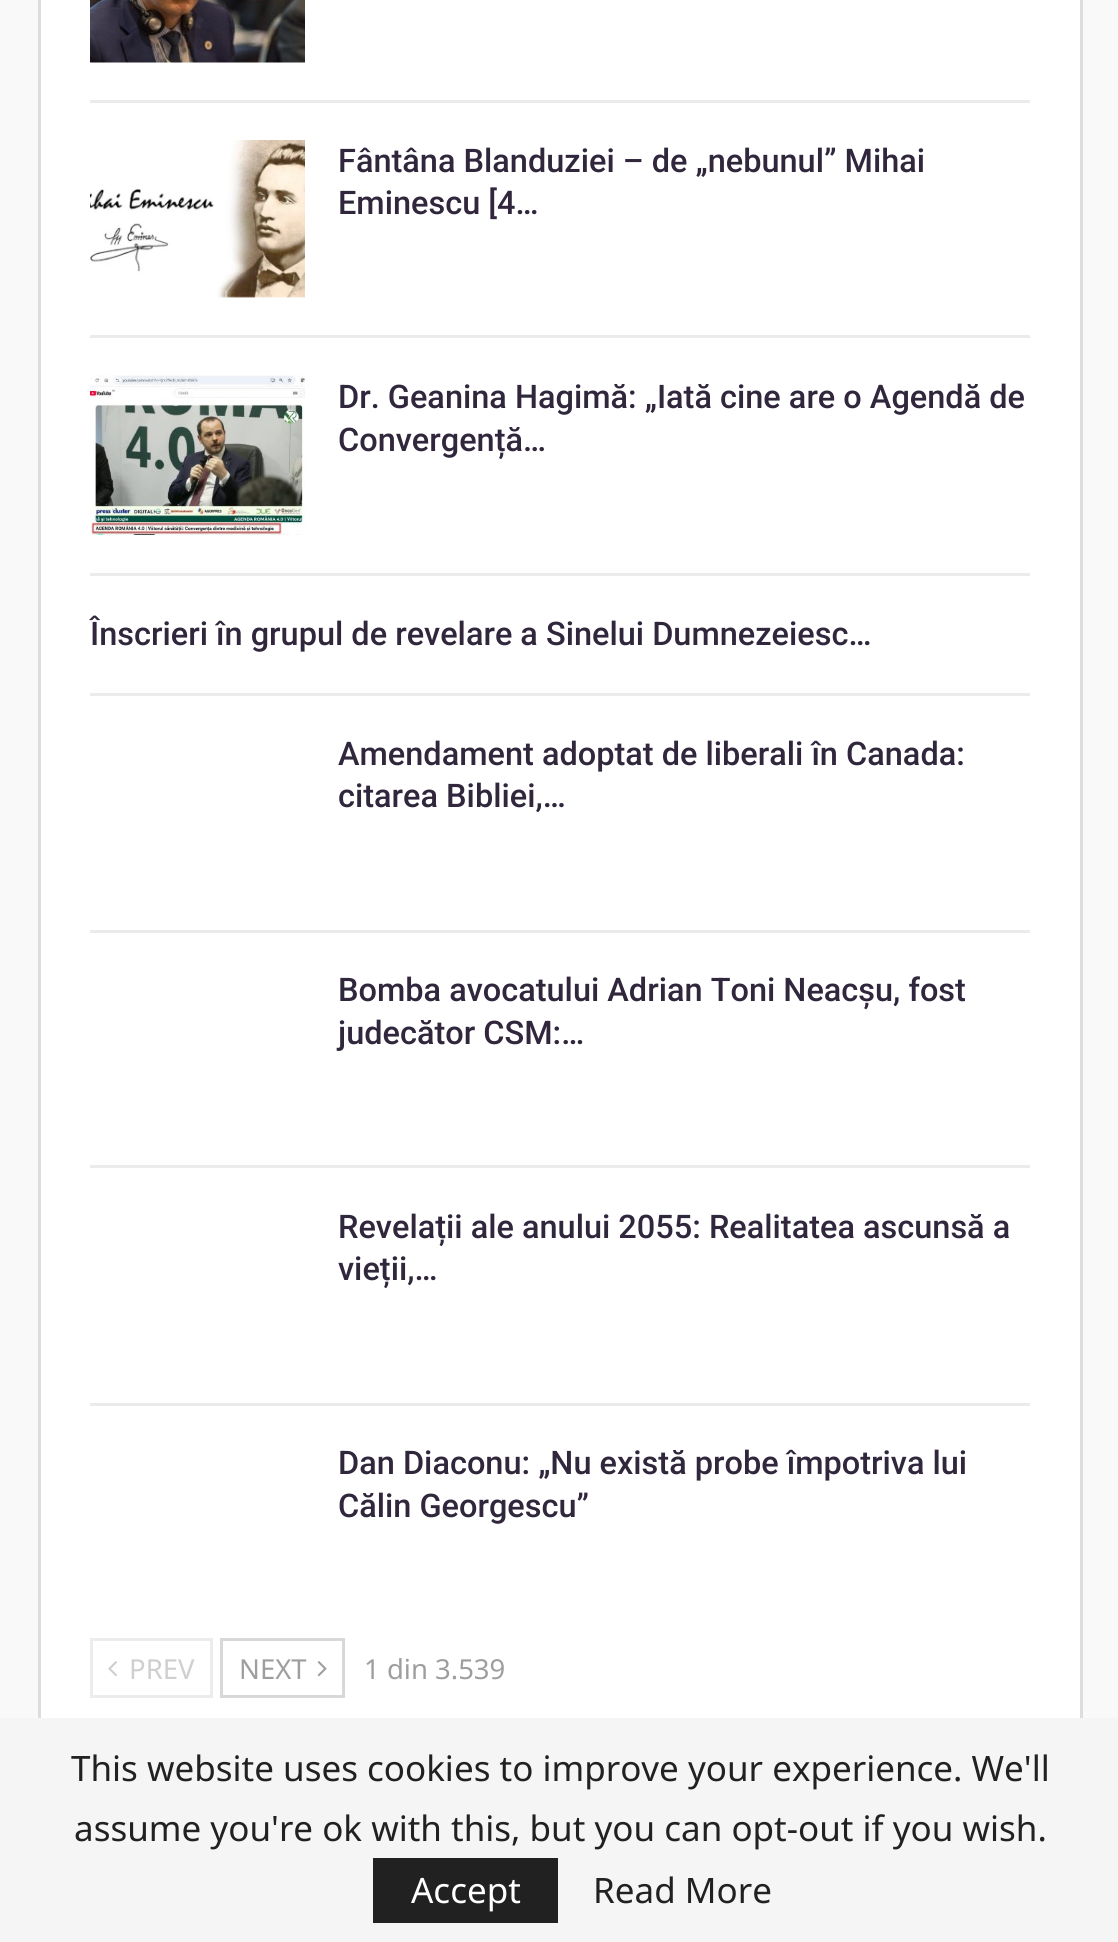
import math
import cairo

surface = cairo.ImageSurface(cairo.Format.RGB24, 1118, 1942)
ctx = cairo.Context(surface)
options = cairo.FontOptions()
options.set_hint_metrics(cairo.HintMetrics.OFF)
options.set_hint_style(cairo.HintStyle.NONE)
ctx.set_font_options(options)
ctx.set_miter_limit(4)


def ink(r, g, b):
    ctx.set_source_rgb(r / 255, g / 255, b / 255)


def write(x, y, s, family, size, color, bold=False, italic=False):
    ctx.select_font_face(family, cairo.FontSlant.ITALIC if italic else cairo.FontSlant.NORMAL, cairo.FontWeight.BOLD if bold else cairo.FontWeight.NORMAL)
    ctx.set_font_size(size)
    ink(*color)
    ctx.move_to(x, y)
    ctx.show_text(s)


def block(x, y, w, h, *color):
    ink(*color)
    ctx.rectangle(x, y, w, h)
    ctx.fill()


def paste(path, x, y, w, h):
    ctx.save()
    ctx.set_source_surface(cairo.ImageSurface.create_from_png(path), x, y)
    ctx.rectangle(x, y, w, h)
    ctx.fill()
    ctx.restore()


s1 = dict(family="Roboto Medium", size=32.5, color=(49, 39, 61))
s2 = dict(family="Noto Sans", size=27.5, color=(207, 207, 207))
s3 = dict(family="Noto Sans", size=27.5, color=(158, 158, 158))
s4 = dict(family="Noto Sans", size=35, color=(33, 33, 33))
s5 = dict(family="Noto Sans", size=35, color=(255, 255, 255))

ink(249, 249, 249)
ctx.paint()
block(41, 0, 1039, 1718, 255, 255, 255)
ctx.rectangle(39.5, -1.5, 1042, 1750)
ink(221, 221, 221)
ctx.set_line_width(3)
ctx.stroke()
block(90, 100, 940, 3, 235, 235, 235)
paste("pic1.png", 90, 0, 215, 63)
block(90, 335, 940, 3, 235, 235, 235)
paste("pic2.png", 90, 140, 215, 158)
write(338, 172, "Fântâna Blanduziei – de „nebunul” Mihai", **s1)
write(338, 214, "Eminescu [4…", **s1)
block(90, 573, 940, 3, 235, 235, 235)
paste("pic3.png", 90, 375, 215, 160)
write(338, 408, "Dr. Geanina Hagimă: „Iată cine are o Agendă de", **s1)
write(338, 451, "Convergență…", **s1)
block(90, 693, 940, 3, 235, 235, 235)
write(90, 645, "Înscrieri în grupul de revelare a Sinelui Dumnezeiesc…", **s1)
block(90, 930, 940, 3, 235, 235, 235)
write(338, 765, "Amendament adoptat de liberali în Canada:", **s1)
write(338, 807, "citarea Bibliei,…", **s1)
block(90, 1165, 940, 3, 235, 235, 235)
write(338, 1001, "Bomba avocatului Adrian Toni Neacșu, fost", **s1)
write(338, 1044, "judecător CSM:…", **s1)
block(90, 1403, 940, 3, 235, 235, 235)
write(338, 1238, "Revelații ale anului 2055: Realitatea ascunsă a", **s1)
write(338, 1280, "vieții,…", **s1)
write(338, 1474, "Dan Diaconu: „Nu există probe împotriva lui", **s1)
write(338, 1517, "Călin Georgescu”", **s1)
ctx.rectangle(91.5, 1639.5, 120, 57)
ink(236, 236, 236)
ctx.stroke()
paste("pic4.png", 108, 1661, 9, 16)
write(129, 1679, "PREV", **s2)
ctx.rectangle(221.5, 1639.5, 122, 57)
ink(216, 216, 216)
ctx.stroke()
write(239, 1679, "NEXT", **s3)
paste("pic5.png", 317, 1661, 10, 16)
write(364, 1679, "1 din 3.539", **s3)
block(0, 1718, 1118, 224, 245, 245, 245)
write(71, 1781, "This website uses cookies to improve your experience. We'll", **s4)
write(74, 1841, "assume you're ok with this, but you can opt-out if you wish.", **s4)
block(373, 1858, 185, 65, 33, 33, 33)
write(411, 1903, "Accept", **s5)
write(593, 1903, "Read More", **s4)
surface.write_to_png("screenshot.png")
